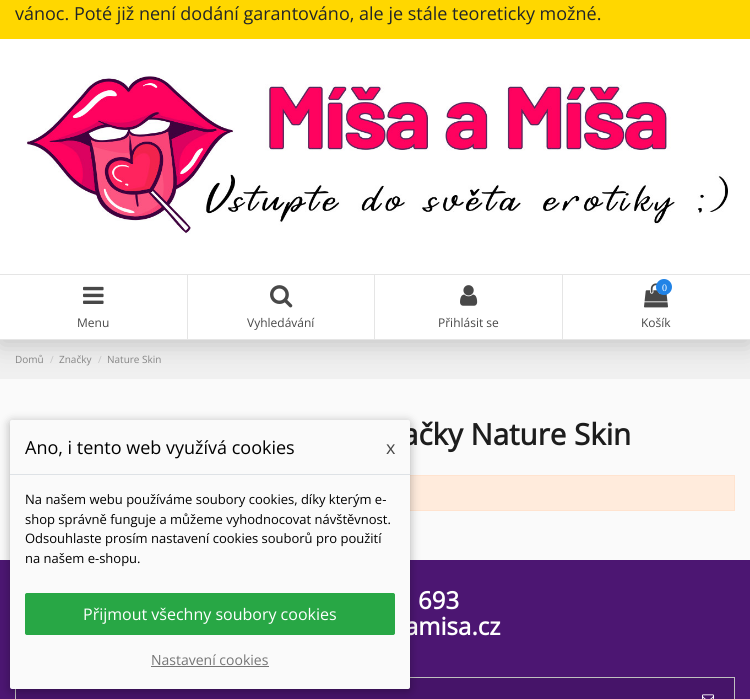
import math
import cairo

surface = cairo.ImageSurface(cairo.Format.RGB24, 750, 699)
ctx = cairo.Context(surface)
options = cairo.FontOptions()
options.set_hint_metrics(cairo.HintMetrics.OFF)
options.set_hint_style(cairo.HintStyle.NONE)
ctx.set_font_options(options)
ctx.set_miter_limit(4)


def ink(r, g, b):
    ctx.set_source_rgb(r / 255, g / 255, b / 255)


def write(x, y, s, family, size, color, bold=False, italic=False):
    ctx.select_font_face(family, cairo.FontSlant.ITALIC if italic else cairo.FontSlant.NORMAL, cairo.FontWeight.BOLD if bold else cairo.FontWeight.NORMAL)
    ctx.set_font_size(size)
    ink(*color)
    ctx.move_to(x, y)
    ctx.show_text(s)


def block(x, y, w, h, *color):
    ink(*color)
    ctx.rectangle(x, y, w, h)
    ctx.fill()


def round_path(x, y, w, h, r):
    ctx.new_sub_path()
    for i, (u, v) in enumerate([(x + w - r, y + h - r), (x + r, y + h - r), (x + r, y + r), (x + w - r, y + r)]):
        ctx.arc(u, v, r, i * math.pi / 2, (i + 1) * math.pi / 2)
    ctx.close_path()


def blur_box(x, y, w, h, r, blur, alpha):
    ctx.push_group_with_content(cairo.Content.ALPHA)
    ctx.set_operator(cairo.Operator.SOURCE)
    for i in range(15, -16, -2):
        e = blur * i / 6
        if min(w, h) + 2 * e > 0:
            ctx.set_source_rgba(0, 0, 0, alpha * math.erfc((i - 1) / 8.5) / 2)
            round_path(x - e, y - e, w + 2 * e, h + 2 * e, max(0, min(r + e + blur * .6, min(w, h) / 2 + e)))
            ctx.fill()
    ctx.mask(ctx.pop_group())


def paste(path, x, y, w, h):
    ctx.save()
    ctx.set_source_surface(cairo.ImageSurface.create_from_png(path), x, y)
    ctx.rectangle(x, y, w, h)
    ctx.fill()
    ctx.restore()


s1 = dict(family="Open Sans", size=18, color=(33, 37, 41))
s2 = dict(family="Open Sans", size=12, color=(72, 72, 72))
s3 = dict(family="Liberation Serif", size=10, color=(255, 255, 255))
s4 = dict(family="Open Sans", size=10, color=(133, 133, 133))
s5 = dict(family="Open Sans", size=10, color=(197, 197, 197))
s6 = dict(family="Open Sans", size=29.5, color=(29, 29, 29), bold=True)
s7 = dict(family="Open Sans", size=24, color=(255, 255, 255), bold=True)
s8 = dict(family="Open Sans", size=18, color=(0, 0, 0))
s9 = dict(family="Open Sans", size=18, color=(72, 72, 72))
s10 = dict(family="Open Sans", size=13, color=(0, 0, 0))
s11 = dict(family="Open Sans", size=16, color=(255, 255, 255))
s12 = dict(family="Open Sans", size=14, color=(117, 117, 117))

ink(250, 250, 250)
ctx.paint()
block(0, 340, 750, 39, 240, 240, 240)
ink(0, 0, 0)
blur_box(0, -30, 750, 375, 0, 12.5, 0.18)
block(0, 39, 750, 301, 255, 255, 255)
block(0, 0, 750, 39, 255, 215, 0)
write(15, 20, "vánoc. Poté již není dodání garantováno, ale je stále teoreticky možné.", **s1)
paste("pic1.png", 26, 75, 702, 159)
ink(229, 229, 229)
ctx.new_path()
ctx.move_to(0, 274)
ctx.line_to(188, 274)
ctx.line_to(187, 275)
ctx.line_to(0, 275)
ctx.close_path()
ctx.fill()
ctx.set_source_rgba(0.082, 0.082, 0.082, 0.11)
ctx.new_path()
ctx.move_to(188, 274)
ctx.line_to(188, 340)
ctx.line_to(187, 339)
ctx.line_to(187, 275)
ctx.close_path()
ctx.fill()
ctx.new_path()
ctx.move_to(188, 340)
ctx.line_to(0, 340)
ctx.line_to(0, 339)
ctx.line_to(187, 339)
ctx.close_path()
ctx.fill()
paste("pic2.png", 83, 286, 21, 18)
write(77, 327, "Menu", **s2)
ink(229, 229, 229)
ctx.new_path()
ctx.move_to(188, 274)
ctx.line_to(375, 274)
ctx.line_to(374, 275)
ctx.line_to(188, 275)
ctx.close_path()
ctx.fill()
ctx.set_source_rgba(0.082, 0.082, 0.082, 0.11)
ctx.new_path()
ctx.move_to(375, 274)
ctx.line_to(375, 340)
ctx.line_to(374, 339)
ctx.line_to(374, 275)
ctx.close_path()
ctx.fill()
ctx.new_path()
ctx.move_to(375, 340)
ctx.line_to(188, 340)
ctx.line_to(188, 339)
ctx.line_to(374, 339)
ctx.close_path()
ctx.fill()
paste("pic3.png", 270, 285, 23, 23)
write(247, 327, "Vyhledávání", **s2)
ink(229, 229, 229)
ctx.new_path()
ctx.move_to(375, 274)
ctx.line_to(563, 274)
ctx.line_to(562, 275)
ctx.line_to(375, 275)
ctx.close_path()
ctx.fill()
ctx.set_source_rgba(0.082, 0.082, 0.082, 0.11)
ctx.new_path()
ctx.move_to(563, 274)
ctx.line_to(563, 340)
ctx.line_to(562, 339)
ctx.line_to(562, 275)
ctx.close_path()
ctx.fill()
ctx.new_path()
ctx.move_to(563, 340)
ctx.line_to(375, 340)
ctx.line_to(375, 339)
ctx.line_to(562, 339)
ctx.close_path()
ctx.fill()
paste("pic4.png", 460, 285, 18, 21)
write(438, 327, "Přihlásit se", **s2)
block(563, 274, 187, 1, 229, 229, 229)
block(563, 339, 187, 1, 229, 229, 229)
paste("pic5.png", 644, 283, 24, 25)
ink(33, 131, 230)
ctx.arc(664, 287, 8, 0, 2 * math.pi)
ctx.fill()
write(662, 291, "0", **s3)
write(641, 327, "Košík", **s2)
write(15, 363, "Domů", **s4)
write(50, 363, "/", **s5)
write(59, 363, "Značky", **s4)
write(98, 363, "/", **s5)
write(107, 363, "Nature Skin", **s4)
write(402, 445, "ačky Nature Skin", **s6)
block(410, 476, 324, 34, 255, 235, 220)
ctx.rectangle(15.5, 475.5, 719, 35)
ink(255, 227, 207)
ctx.set_line_width(1)
ctx.stroke()
block(0, 560, 750, 139, 76, 22, 114)
write(418, 609, "693", **s7)
write(405, 635, "amisa.cz", **s7)
ctx.rectangle(15.5, 677.5, 719, 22)
ink(192, 192, 192)
ctx.stroke()
block(16, 678, 718, 21, 70, 20, 105)
paste("pic6.png", 702, 694, 12, 5)
ink(0, 0, 0)
blur_box(10, 422, 400, 269, 2, 5, 0.3)
ink(250, 250, 250)
round_path(10, 420, 400, 269, 2)
ctx.fill()
block(10, 474, 400, 1, 222, 226, 230)
write(25, 454, "Ano, i tento web využívá cookies", **s8)
write(386, 454, "x", **s9)
write(25, 504, "Na našem webu používáme soubory cookies, díky kterým e-", **s10)
write(25, 524, "shop správně funguje a můžeme vyhodnocovat návštěvnost.", **s10)
write(25, 543, "Odsouhlaste prosím nastavení cookies souborů pro použití", **s10)
write(25, 563, "na našem e-shopu.", **s10)
ink(40, 167, 69)
round_path(25.5, 593.5, 369, 41, 1.5)
ctx.fill_preserve()
ctx.stroke()
write(83, 620, "Přijmout všechny soubory cookies", **s11)
write(151, 665, "Nastavení cookies", **s12)
block(151, 666, 118, 1, 117, 117, 117)
surface.write_to_png("screenshot.png")
